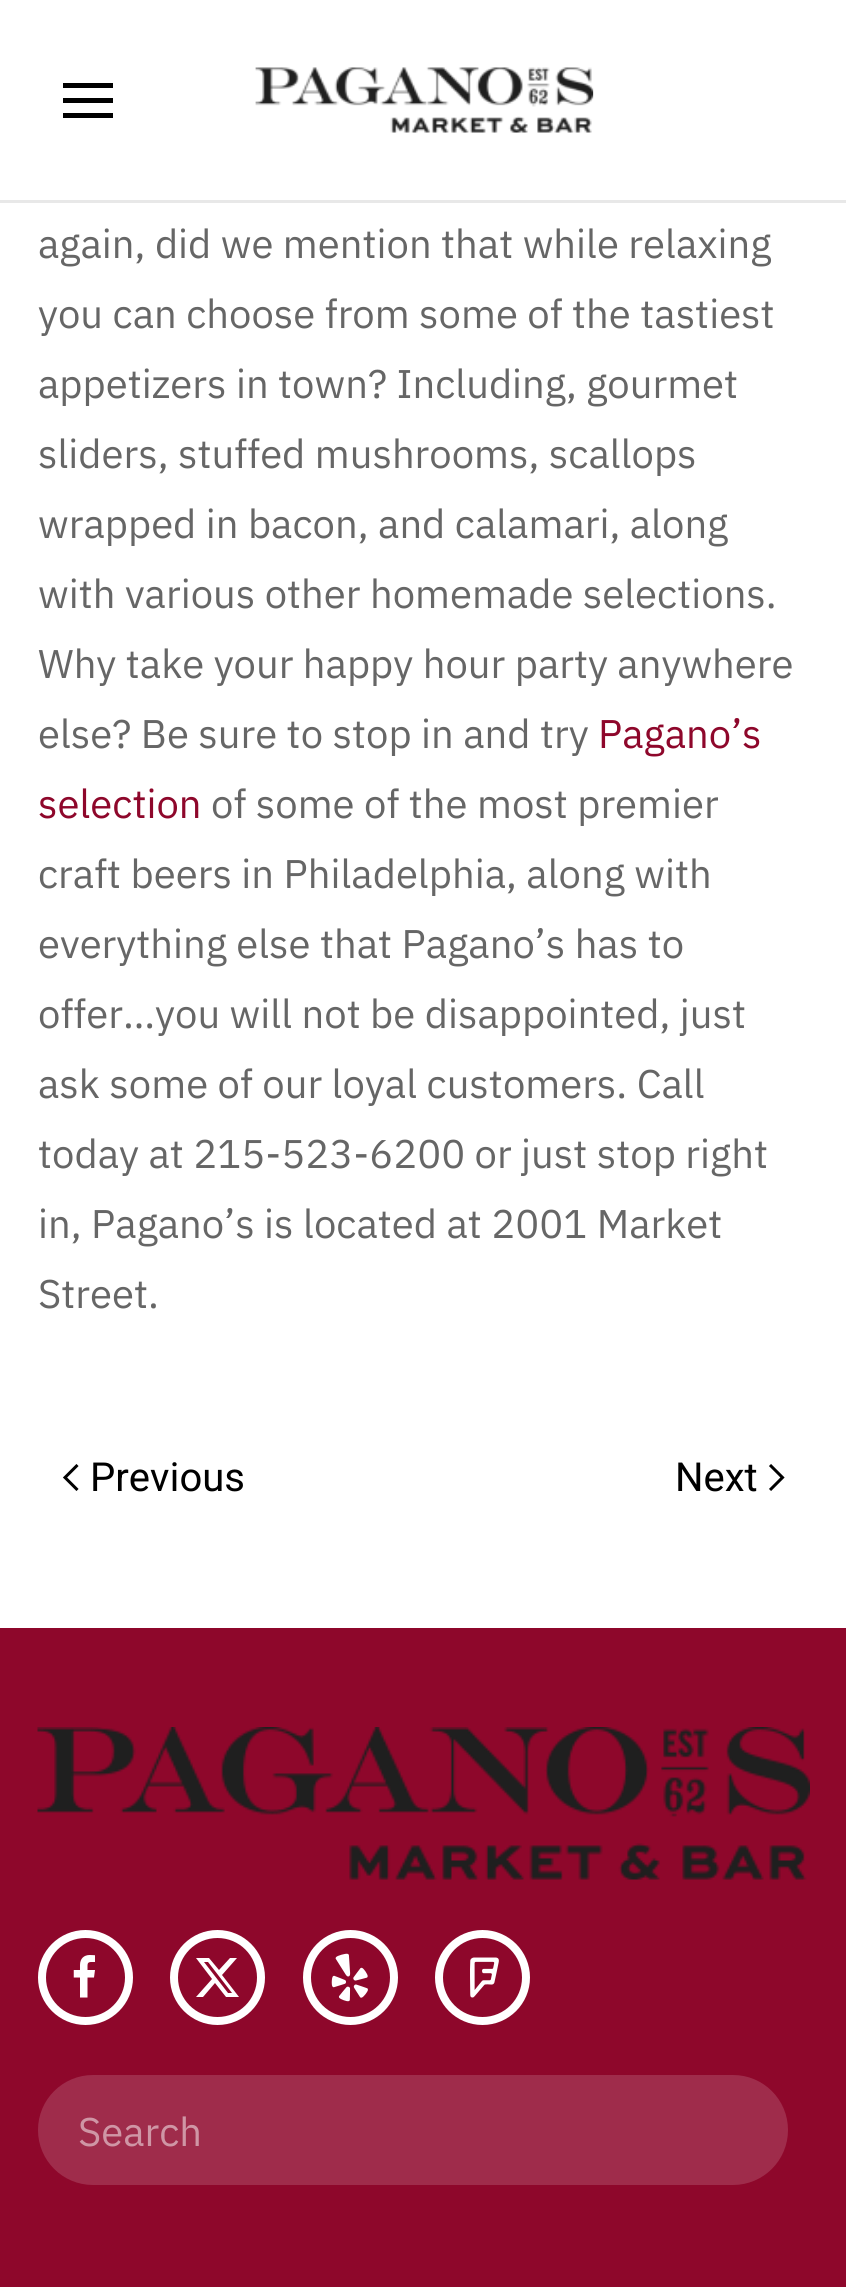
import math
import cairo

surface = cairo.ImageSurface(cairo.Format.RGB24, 846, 2287)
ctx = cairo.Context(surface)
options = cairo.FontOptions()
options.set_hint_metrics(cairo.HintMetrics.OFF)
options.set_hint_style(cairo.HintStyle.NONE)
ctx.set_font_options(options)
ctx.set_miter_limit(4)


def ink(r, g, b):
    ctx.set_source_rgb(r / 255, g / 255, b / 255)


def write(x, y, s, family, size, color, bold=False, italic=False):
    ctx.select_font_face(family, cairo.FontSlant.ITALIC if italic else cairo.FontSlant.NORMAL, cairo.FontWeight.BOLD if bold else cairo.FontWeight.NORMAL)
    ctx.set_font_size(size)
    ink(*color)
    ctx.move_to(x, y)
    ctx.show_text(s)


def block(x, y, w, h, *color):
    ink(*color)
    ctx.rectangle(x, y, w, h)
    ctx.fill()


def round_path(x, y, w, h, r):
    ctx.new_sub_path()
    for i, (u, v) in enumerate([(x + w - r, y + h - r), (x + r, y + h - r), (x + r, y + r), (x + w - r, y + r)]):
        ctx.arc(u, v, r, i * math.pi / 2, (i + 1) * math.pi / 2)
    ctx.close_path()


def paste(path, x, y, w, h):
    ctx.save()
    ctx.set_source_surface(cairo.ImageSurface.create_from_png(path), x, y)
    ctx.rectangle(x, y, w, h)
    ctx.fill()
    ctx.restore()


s1 = dict(family="IBM Plex Sans", size=40, color=(102, 102, 102))
s2 = dict(family="IBM Plex Sans", size=40, color=(142, 7, 43))
s3 = dict(family="Heebo", size=40, color=(0, 0, 0))
s4 = dict(family="IBM Plex Sans", size=40, color=(207, 150, 165))

ink(255, 255, 255)
ctx.paint()
block(0, 200, 846, 3, 232, 232, 232)
block(63, 83, 50, 5, 0, 0, 0)
block(63, 98, 50, 5, 0, 0, 0)
block(63, 113, 50, 5, 0, 0, 0)
paste("pic1.png", 255, 67, 339, 66)
write(38, 258, "again, did we mention that while relaxing", **s1)
write(38, 328, "you can choose from some of the tastiest", **s1)
write(38, 398, "appetizers in town? Including, gourmet", **s1)
write(38, 468, "sliders, stuffed mushrooms, scallops", **s1)
write(38, 538, "wrapped in bacon, and calamari, along", **s1)
write(38, 608, "with various other homemade selections.", **s1)
write(38, 678, "Why take your happy hour party anywhere", **s1)
write(38, 748, "else? Be sure to stop in and try", **s1)
write(598, 748, "Pagano’s", **s2)
write(38, 818, "selection", **s2)
write(211, 818, "of some of the most premier", **s1)
write(38, 888, "craft beers in Philadelphia, along with", **s1)
write(38, 958, "everything else that Pagano’s has to", **s1)
write(38, 1028, "offer…you will not be disappointed, just", **s1)
write(38, 1098, "ask some of our loyal customers. Call", **s1)
write(38, 1168, "today at 215-523-6200 or just stop right", **s1)
write(38, 1238, "in, Pagano’s is located at 2001 Market", **s1)
write(38, 1308, "Street.", **s1)
ctx.new_path()
ctx.move_to(77.5, 1465)
ctx.line_to(65, 1477.5)
ctx.line_to(77.5, 1490)
ink(0, 0, 0)
ctx.set_line_width(3)
ctx.stroke()
write(90, 1491, "Previous", **s3)
write(675, 1491, "Next", **s3)
ctx.new_path()
ctx.move_to(770, 1465)
ctx.line_to(782.5, 1477.5)
ctx.line_to(770, 1490)
ctx.stroke()
block(0, 1628, 846, 659, 142, 7, 43)
paste("pic2.png", 37, 1727, 773, 153)
ctx.arc(85.5, 1977.5, 43.5, 0, 2 * math.pi)
ink(255, 255, 255)
ctx.set_line_width(8)
ctx.stroke()
paste("pic3.png", 73, 1955, 22, 43)
ctx.arc(217.5, 1977.5, 43.5, 0, 2 * math.pi)
ctx.stroke()
ctx.new_path()
ctx.move_to(230, 1958)
ctx.line_to(237, 1958)
ctx.line_to(222, 1975)
ctx.line_to(239, 1997)
ctx.line_to(226, 1997)
ctx.line_to(215, 1983)
ctx.line_to(203, 1997)
ctx.line_to(196, 1997)
ctx.line_to(212, 1979)
ctx.line_to(196, 1958)
ctx.line_to(209, 1958)
ctx.line_to(219, 1970)
ctx.close_path()
ctx.move_to(228, 1993)
ctx.line_to(232, 1993)
ctx.line_to(208, 1962)
ctx.line_to(204, 1962)
ctx.close_path()
ctx.fill()
ctx.arc(350.5, 1977.5, 43.5, 0, 2 * math.pi)
ctx.stroke()
paste("pic4.png", 331, 1953, 37, 49)
ctx.arc(482.5, 1977.5, 43.5, 0, 2 * math.pi)
ctx.stroke()
paste("pic5.png", 470, 1957, 29, 41)
ink(159, 44, 75)
round_path(38, 2075, 750, 110, 55)
ctx.fill()
write(78, 2146, "Search", **s4)
surface.write_to_png("screenshot.png")
